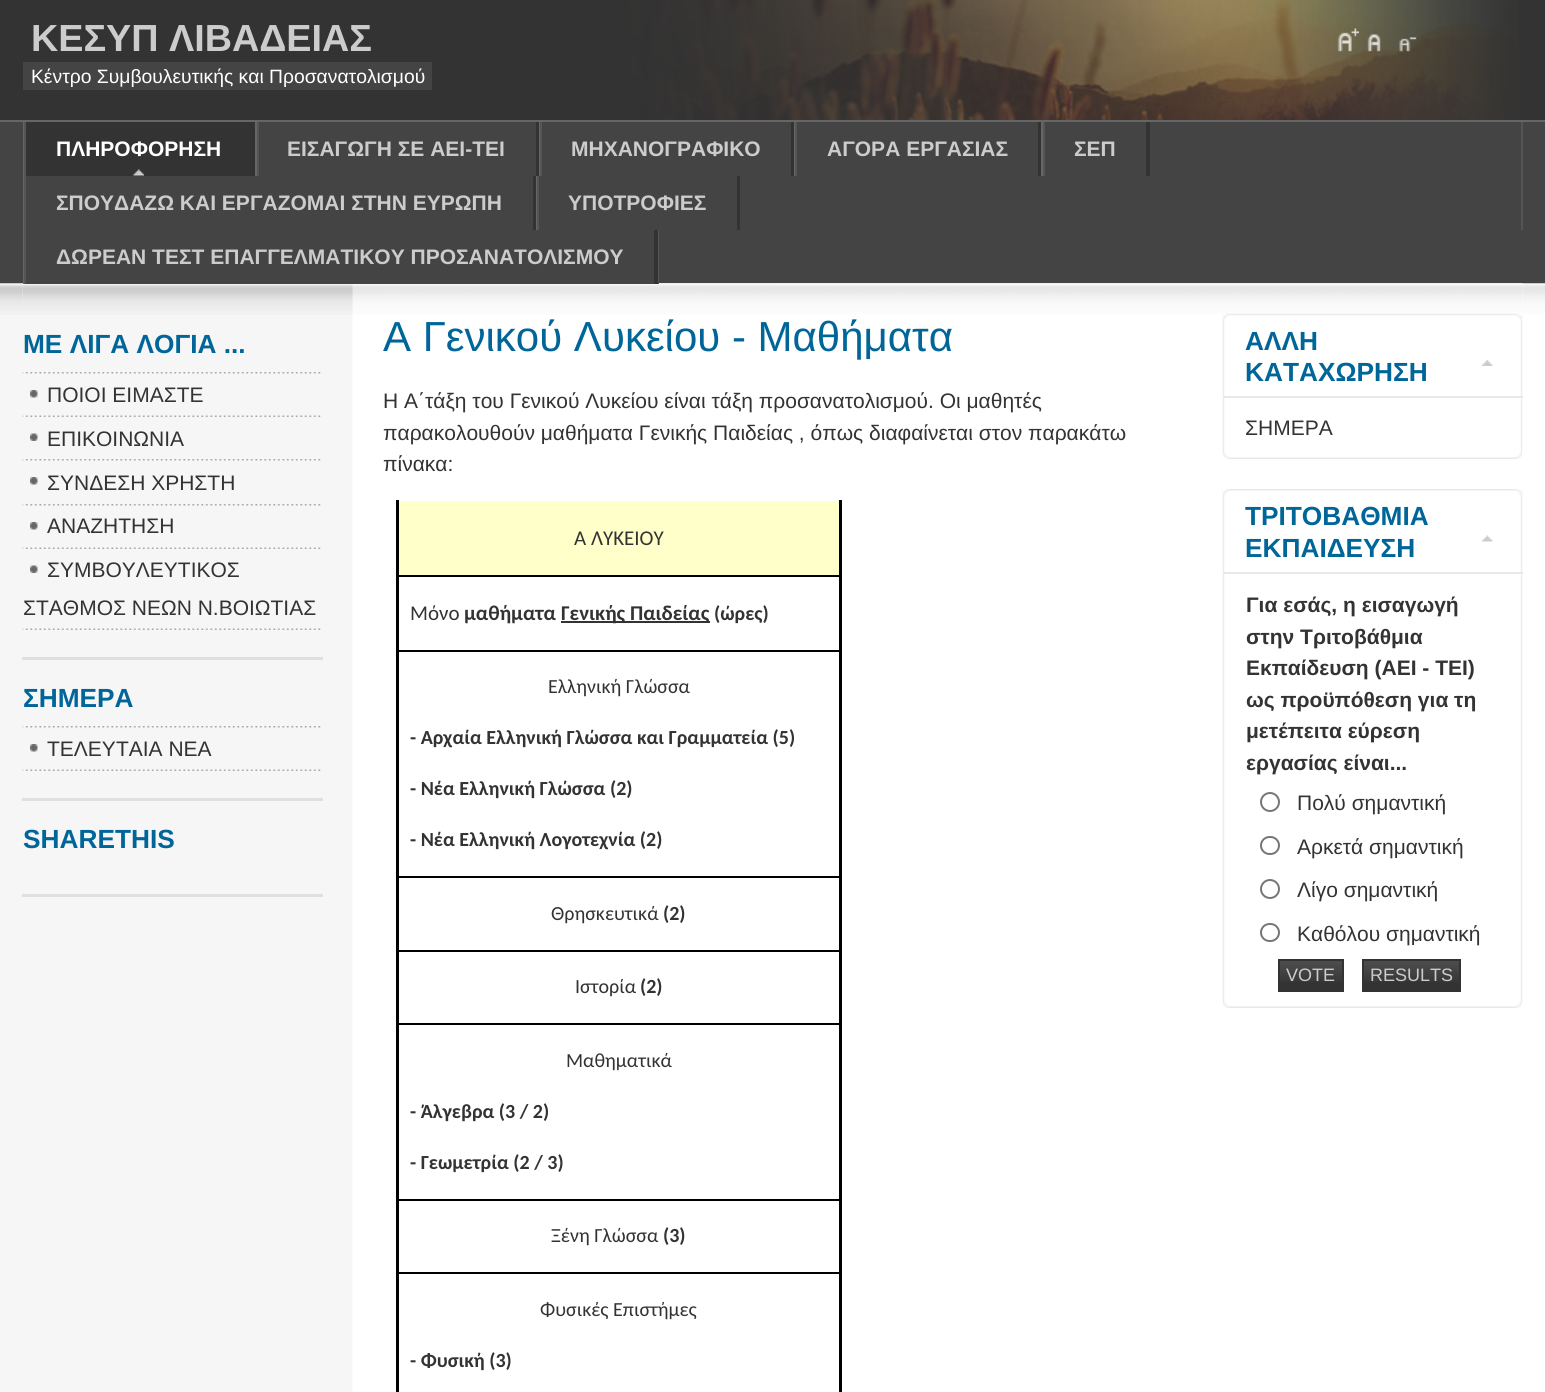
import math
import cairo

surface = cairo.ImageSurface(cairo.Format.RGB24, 1545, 1392)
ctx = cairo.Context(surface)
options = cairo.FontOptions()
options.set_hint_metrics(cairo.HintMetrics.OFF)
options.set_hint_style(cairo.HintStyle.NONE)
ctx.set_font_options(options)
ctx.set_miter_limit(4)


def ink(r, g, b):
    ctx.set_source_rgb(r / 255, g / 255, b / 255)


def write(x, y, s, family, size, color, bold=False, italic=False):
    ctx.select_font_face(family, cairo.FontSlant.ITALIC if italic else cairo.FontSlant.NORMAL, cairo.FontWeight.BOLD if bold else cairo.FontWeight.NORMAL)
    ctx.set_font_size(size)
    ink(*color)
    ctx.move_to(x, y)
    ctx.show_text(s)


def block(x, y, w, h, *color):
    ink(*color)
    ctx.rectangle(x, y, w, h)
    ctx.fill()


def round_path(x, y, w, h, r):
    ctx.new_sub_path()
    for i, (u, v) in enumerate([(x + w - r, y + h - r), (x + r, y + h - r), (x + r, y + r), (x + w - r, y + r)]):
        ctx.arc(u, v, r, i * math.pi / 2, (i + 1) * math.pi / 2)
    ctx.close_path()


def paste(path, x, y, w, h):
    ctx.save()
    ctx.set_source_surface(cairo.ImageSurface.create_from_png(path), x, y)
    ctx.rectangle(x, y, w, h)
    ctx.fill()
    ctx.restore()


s1 = dict(family="Liberation Sans", size=37.75, color=(204, 204, 204), bold=True)
s2 = dict(family="Liberation Sans", size=19.3, color=(255, 255, 255))
s3 = dict(family="Liberation Sans", size=21, color=(255, 255, 255), bold=True)
s4 = dict(family="Liberation Sans", size=21, color=(204, 204, 204), bold=True)
s5 = dict(family="Liberation Sans", size=26.25, color=(0, 102, 153), bold=True)
s6 = dict(family="Liberation Sans", size=21, color=(51, 51, 51))
s7 = dict(family="Liberation Sans", size=42, color=(0, 102, 153))
s8 = dict(family="Carlito", size=21, color=(51, 51, 51))
s9 = dict(family="Carlito", size=21, color=(51, 51, 51), bold=True)
s10 = dict(family="Carlito", size=20, color=(51, 51, 51), bold=True)
s11 = dict(family="Carlito", size=20, color=(51, 51, 51))
s12 = dict(family="Liberation Sans", size=21, color=(51, 51, 51), bold=True)
s13 = dict(family="Liberation Sans", size=18, color=(204, 204, 204))

ink(51, 51, 51)
ctx.paint()
paste("pic1.png", 629, 0, 890, 120)
write(31, 51, "ΚΕΣΥΠ ΛΙΒΑΔΕΙΑΣ", **s1)
paste("pic2.png", 622, 0, 901, 120)
paste("pic3.png", 1337, 28, 22, 24)
paste("pic4.png", 1367, 34, 14, 18)
paste("pic5.png", 1399, 37, 18, 15)
block(23, 62, 409, 28, 68, 68, 68)
write(31, 83, "Κέντρο Συμβουλευτικής και Προσανατολισμού", **s2)
block(0, 122, 1545, 162, 68, 68, 68)
block(0, 120, 1545, 2, 102, 102, 102)
block(1521, 122, 2, 108, 85, 85, 85)
block(26, 122, 229, 54, 51, 51, 51)
paste("pic7.png", 0, 283, 1545, 1109)
paste("pic8.png", 0, 283, 1545, 32)
paste("pic9.png", 22, 283, 1501, 1109)
paste("pic10.png", 22, 283, 1501, 32)
block(23, 122, 1, 162, 102, 102, 102)
paste("pic6.png", 133, 169, 11, 7)
block(24, 122, 2, 162, 85, 85, 85)
write(56, 156, "ΠΛΗΡΟΦΟΡΗΣΗ", **s3)
block(536, 122, 3, 54, 51, 51, 51)
block(255, 122, 2, 54, 102, 102, 102)
block(257, 122, 2, 54, 85, 85, 85)
write(287, 156, "ΕΙΣΑΓΩΓΗ ΣΕ ΑΕΙ-ΤΕΙ", **s4)
block(791, 122, 3, 54, 51, 51, 51)
block(539, 122, 1, 54, 102, 102, 102)
block(540, 122, 2, 54, 85, 85, 85)
write(571, 156, "ΜΗΧΑΝΟΓΡΑΦΙΚΟ", **s4)
block(1038, 122, 3, 54, 51, 51, 51)
block(794, 122, 1, 54, 102, 102, 102)
block(795, 122, 2, 54, 85, 85, 85)
write(827, 156, "ΑΓΟΡΑ ΕΡΓΑΣΙΑΣ", **s4)
block(1146, 122, 4, 54, 51, 51, 51)
block(1041, 122, 2, 54, 102, 102, 102)
block(1043, 122, 2, 54, 85, 85, 85)
write(1074, 156, "ΣΕΠ", **s4)
block(533, 176, 3, 54, 51, 51, 51)
write(56, 210, "ΣΠΟΥΔΑΖΩ ΚΑΙ ΕΡΓΑΖΟΜΑΙ ΣΤΗΝ ΕΥΡΩΠΗ", **s4)
block(737, 176, 3, 54, 51, 51, 51)
block(536, 176, 1, 54, 102, 102, 102)
block(537, 176, 2, 54, 85, 85, 85)
write(568, 210, "ΥΠΟΤΡΟΦΙΕΣ", **s4)
block(26, 283, 628, 1, 68, 68, 68)
block(658, 230, 1, 54, 85, 85, 85)
block(654, 230, 4, 54, 51, 51, 51)
write(56, 264, "ΔΩΡΕΑΝ ΤΕΣΤ ΕΠΑΓΓΕΛΜΑΤΙΚΟΥ ΠΡΟΣΑΝΑΤΟΛΙΣΜΟΥ", **s4)
block(22, 657, 301, 3, 224, 224, 224)
write(23, 353, "ΜΕ ΛΙΓΑ ΛΟΓΙΑ ...", **s5)
paste("pic11.png", 22, 372, 299, 2)
paste("pic12.png", 22, 415, 299, 2)
paste("pic13.png", 30, 390, 8, 8)
write(47, 402, "ΠΟΙΟΙ ΕΙΜΑΣΤΕ", **s6)
paste("pic11.png", 22, 459, 299, 2)
paste("pic14.png", 30, 433, 8, 8)
write(47, 446, "ΕΠΙΚΟΙΝΩΝΙΑ", **s6)
paste("pic11.png", 22, 504, 299, 2)
paste("pic13.png", 30, 477, 8, 8)
write(47, 490, "ΣΥΝΔΕΣΗ ΧΡΗΣΤΗ", **s6)
paste("pic12.png", 22, 547, 299, 2)
paste("pic13.png", 30, 522, 8, 8)
write(47, 533, "ΑΝΑΖΗΤΗΣΗ", **s6)
paste("pic12.png", 22, 628, 299, 2)
paste("pic14.png", 30, 565, 8, 8)
write(47, 577, "ΣΥΜΒΟΥΛΕΥΤΙΚΟΣ", **s6)
write(23, 615, "ΣΤΑΘΜΟΣ ΝΕΩΝ Ν.ΒΟΙΩΤΙΑΣ", **s6)
block(22, 798, 301, 3, 224, 224, 224)
write(23, 707, "ΣΗΜΕΡΑ", **s5)
paste("pic11.png", 22, 726, 299, 2)
paste("pic12.png", 22, 769, 299, 2)
paste("pic13.png", 30, 744, 8, 8)
write(47, 756, "ΤΕΛΕΥΤΑΙΑ ΝΕΑ", **s6)
block(22, 894, 301, 3, 224, 224, 224)
write(23, 848, "SHARETHIS", **s5)
write(383, 351, "Α Γενικού Λυκείου - Μαθήματα", **s7)
write(383, 408, "Η Α΄τάξη του Γενικού Λυκείου είναι τάξη προσανατολισμού. Οι μαθητές", **s6)
write(383, 440, "παρακολουθούν μαθήματα Γενικής Παιδείας , όπως διαφαίνεται στον παρακάτω", **s6)
write(383, 471, "πίνακα:", **s6)
block(399, 501, 440, 74, 255, 255, 202)
block(398, 575, 442, 2, 0, 0, 0)
write(574, 545, "Α ΛΥΚΕΙΟΥ", **s8)
block(398, 650, 442, 2, 0, 0, 0)
write(410, 620, "Μόνο", **s8)
write(464, 620, "μαθήματα", **s9)
block(561, 621, 149, 2, 51, 51, 51)
write(561, 620, "Γενικής Παιδείας", **s9)
write(714, 620, "(ώρες)", **s10)
block(398, 876, 442, 2, 0, 0, 0)
write(548, 693, "Ελληνική Γλώσσα", **s11)
write(410, 744, "- Αρχαία Ελληνική Γλώσσα και Γραμματεία (5)", **s10)
write(410, 795, "- Νέα Ελληνική Γλώσσα (2)", **s10)
write(410, 846, "- Νέα Ελληνική Λογοτεχνία (2)", **s10)
block(398, 950, 442, 2, 0, 0, 0)
write(551, 920, "Θρησκευτικά", **s11)
write(663, 920, "(2)", **s10)
block(398, 1023, 442, 2, 0, 0, 0)
write(575, 993, "Ιστορία", **s11)
write(640, 993, "(2)", **s10)
block(398, 1199, 442, 2, 0, 0, 0)
write(566, 1067, "Μαθηματικά", **s11)
write(410, 1118, "- Άλγεβρα (3 / 2)", **s10)
write(410, 1169, "- Γεωμετρία (2 / 3)", **s10)
block(398, 1272, 442, 2, 0, 0, 0)
write(551, 1242, "Ξένη Γλώσσα", **s11)
write(663, 1242, "(3)", **s10)
block(839, 500, 3, 892, 0, 0, 0)
block(396, 500, 3, 892, 0, 0, 0)
write(540, 1316, "Φυσικές Επιστήμες", **s11)
write(410, 1367, "- Φυσική (3)", **s10)
paste("pic15.png", 1222, 314, 301, 145)
paste("pic16.png", 1222, 313, 7, 146)
paste("pic17.png", 1223, 313, 299, 47)
paste("pic18.png", 1223, 314, 5, 46)
paste("pic19.png", 1482, 360, 11, 6)
block(1223, 396, 300, 2, 233, 233, 233)
write(1245, 350, "ΑΛΛΗ", **s5)
write(1245, 381, "ΚΑΤΑΧΩΡΗΣΗ", **s5)
write(1245, 435, "ΣΗΜΕΡΑ", **s6)
paste("pic20.png", 1222, 489, 301, 519)
paste("pic21.png", 1222, 489, 7, 519)
paste("pic22.png", 1223, 489, 299, 47)
paste("pic23.png", 1223, 489, 6, 47)
paste("pic24.png", 1482, 535, 11, 7)
block(1223, 572, 300, 2, 233, 233, 233)
write(1245, 525, "ΤΡΙΤΟΒΑΘΜΙΑ", **s5)
write(1245, 557, "ΕΚΠΑΙΔΕΥΣΗ", **s5)
write(1246, 612, "Για εσάς, η εισαγωγή", **s12)
write(1246, 644, "στην Τριτοβάθμια", **s12)
write(1246, 675, "Εκπαίδευση (ΑΕΙ - ΤΕΙ)", **s12)
write(1246, 707, "ως προϋπόθεση για τη", **s12)
write(1246, 738, "μετέπειτα εύρεση", **s12)
write(1246, 770, "εργασίας είναι...", **s12)
ctx.new_path()
ctx.arc(1270, 802, 9, 0, 2 * math.pi)
ink(118, 118, 118)
ctx.stroke()
write(1297, 810, "Πολύ σημαντική", **s6)
round_path(1261, 837, 18, 17, 8.5)
ink(118, 118, 118)
ctx.stroke()
write(1297, 854, "Αρκετά σημαντική", **s6)
ctx.new_path()
ctx.arc(1270, 889, 9, 0, 2 * math.pi)
ink(118, 118, 118)
ctx.stroke()
write(1297, 897, "Λίγο σημαντική", **s6)
round_path(1261, 924, 18, 17, 8.5)
ink(118, 118, 118)
ctx.stroke()
write(1297, 941, "Καθόλου σημαντική", **s6)
block(1280, 982, 62, 8, 51, 51, 51)
paste("pic25.png", 1280, 961, 62, 21)
ctx.rectangle(1279, 960, 64, 31)
ctx.stroke()
write(1286, 981, "VOTE", **s13)
block(1364, 982, 95, 8, 51, 51, 51)
paste("pic26.png", 1364, 961, 95, 21)
ctx.rectangle(1363, 960, 97, 31)
ctx.stroke()
write(1370, 981, "RESULTS", **s13)
surface.write_to_png("screenshot.png")
